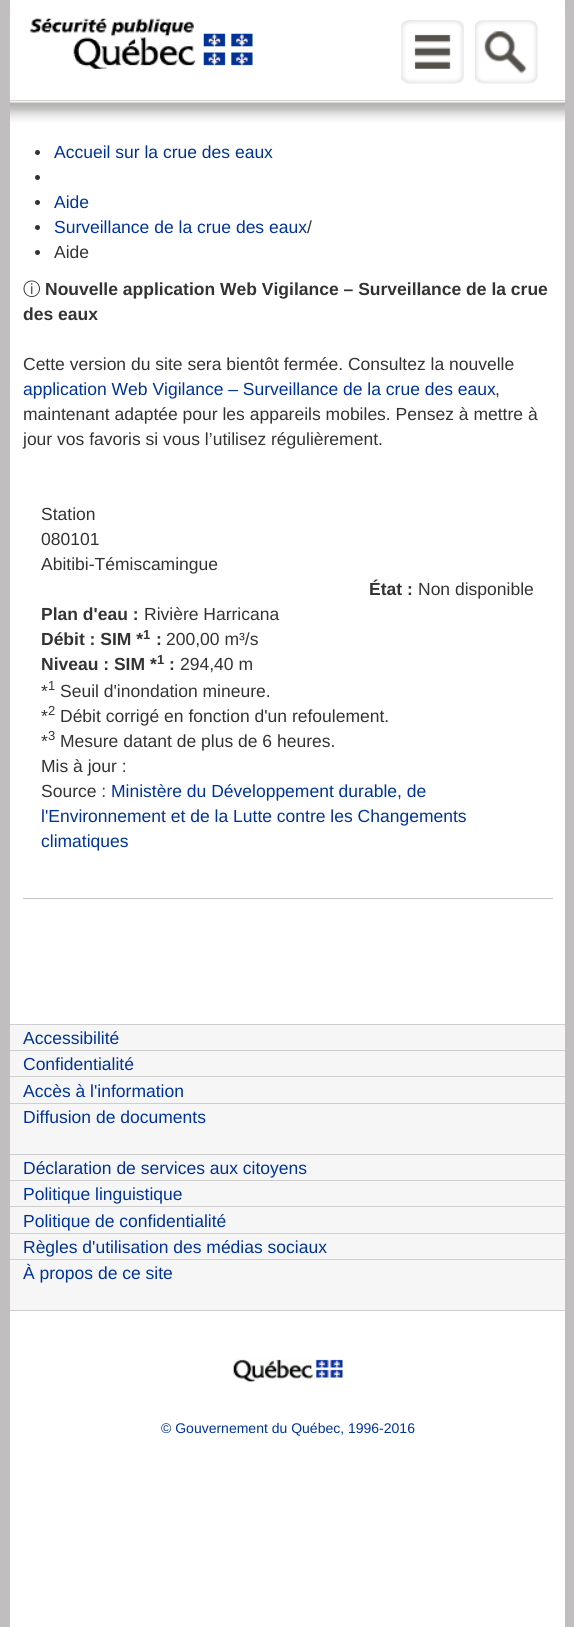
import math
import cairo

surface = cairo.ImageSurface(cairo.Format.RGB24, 574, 1627)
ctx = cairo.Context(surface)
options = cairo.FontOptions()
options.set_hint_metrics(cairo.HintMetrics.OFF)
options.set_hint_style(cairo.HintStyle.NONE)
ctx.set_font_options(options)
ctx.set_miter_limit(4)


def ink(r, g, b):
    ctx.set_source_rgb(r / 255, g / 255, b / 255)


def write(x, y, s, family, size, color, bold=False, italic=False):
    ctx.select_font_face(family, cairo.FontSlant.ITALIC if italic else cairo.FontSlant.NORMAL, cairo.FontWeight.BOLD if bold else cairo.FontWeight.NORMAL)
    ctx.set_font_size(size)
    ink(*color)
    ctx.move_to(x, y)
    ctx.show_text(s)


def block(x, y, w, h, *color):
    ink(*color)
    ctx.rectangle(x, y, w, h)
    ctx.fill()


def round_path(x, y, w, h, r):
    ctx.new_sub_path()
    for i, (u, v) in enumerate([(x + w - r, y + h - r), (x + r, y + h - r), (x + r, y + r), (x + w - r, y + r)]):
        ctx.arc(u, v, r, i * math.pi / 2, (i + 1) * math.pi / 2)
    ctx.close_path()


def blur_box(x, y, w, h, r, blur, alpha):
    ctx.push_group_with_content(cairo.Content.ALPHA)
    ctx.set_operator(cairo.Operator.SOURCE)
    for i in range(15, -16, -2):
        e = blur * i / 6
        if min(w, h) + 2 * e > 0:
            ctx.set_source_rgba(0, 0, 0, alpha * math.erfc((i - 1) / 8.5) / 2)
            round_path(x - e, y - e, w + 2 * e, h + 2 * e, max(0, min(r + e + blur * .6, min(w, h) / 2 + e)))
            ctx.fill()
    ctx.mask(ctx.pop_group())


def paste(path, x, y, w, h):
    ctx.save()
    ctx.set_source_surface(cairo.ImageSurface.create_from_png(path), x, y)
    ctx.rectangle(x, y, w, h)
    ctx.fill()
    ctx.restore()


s1 = dict(family="Liberation Sans", size=17.5, color=(0, 51, 153))
s2 = dict(family="Liberation Sans", size=17.5, color=(51, 51, 51))
s3 = dict(family="WenQuanYi Zen Hei Medium", size=17.5, color=(51, 51, 51))
s4 = dict(family="Liberation Sans", size=17.5, color=(51, 51, 51), bold=True)
s5 = dict(family="Liberation Sans", size=13, color=(51, 51, 51), bold=True)
s6 = dict(family="Liberation Sans", size=13, color=(51, 51, 51))
s7 = dict(family="Liberation Sans", size=14, color=(0, 51, 153))

ink(255, 255, 255)
ctx.paint()
block(565, 0, 9, 1627, 192, 190, 191)
block(0, 0, 10, 1627, 192, 190, 191)
paste("pic4.png", 10, 102, 555, 20)
ctx.save()
ctx.set_fill_rule(cairo.FillRule.EVEN_ODD)
ctx.new_path()
ctx.move_to(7, 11)
ctx.line_to(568, 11)
ctx.line_to(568, 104)
ctx.line_to(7, 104)
ctx.close_path()
ctx.move_to(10, 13)
ctx.line_to(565, 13)
ctx.line_to(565, 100)
ctx.line_to(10, 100)
ctx.close_path()
ctx.clip()
ink(207, 207, 207)
blur_box(10, 14, 555, 87, 0, 0.5, 1)
ctx.restore()
paste("pic1.png", 29, 18, 224, 51)
paste("pic2.png", 401, 20, 63, 64)
paste("pic3.png", 475, 20, 63, 64)
ink(51, 51, 51)
ctx.arc(37.5, 152.5, 2.5, 0, 2 * math.pi)
ctx.fill()
write(54, 158, "Accueil sur la crue des eaux", **s1)
ink(51, 51, 51)
ctx.new_path()
ctx.arc(37.5, 177.5, 2.5, 0, 2 * math.pi)
ctx.fill()
ctx.arc(37.5, 202.5, 2.5, 0, 2 * math.pi)
ctx.fill()
write(54, 208, "Aide", **s1)
ink(51, 51, 51)
ctx.new_path()
ctx.arc(37.5, 227.5, 2.5, 0, 2 * math.pi)
ctx.fill()
write(54, 233, "Surveillance de la crue des eaux", **s1)
write(307, 233, "/", **s2)
ctx.new_path()
ctx.arc(37.5, 252.5, 2.5, 0, 2 * math.pi)
ctx.fill()
write(54, 258, "Aide", **s2)
write(23, 295, "ⓘ", **s3)
write(45, 295, "Nouvelle application Web Vigilance – Surveillance de la crue", **s4)
write(23, 320, "des eaux", **s4)
write(23, 370, "Cette version du site sera bientôt fermée. Consultez la nouvelle", **s2)
write(23, 395, "application Web Vigilance – Surveillance de la crue des eaux", **s1)
write(495, 395, ",", **s2)
write(23, 420, "maintenant adaptée pour les appareils mobiles. Pensez à mettre à", **s2)
write(23, 445, "jour vos favoris si vous l’utilisez régulièrement.", **s2)
write(41, 520, "Station", **s2)
write(41, 545, "080101", **s2)
write(41, 570, "Abitibi-Témiscamingue", **s2)
write(369, 595, "État :", **s4)
write(418, 595, "Non disponible", **s2)
write(41, 620, "Plan d'eau :", **s4)
write(144, 620, "Rivière Harricana", **s2)
write(41, 645, "Débit : SIM *", **s4)
write(143, 639, "1", **s5)
write(156, 645, ":", **s4)
write(166, 645, "200,00 m³/s", **s2)
write(41, 670, "Niveau : SIM *", **s4)
write(157, 664, "1", **s5)
write(169, 670, ":", **s4)
write(180, 670, "294,40 m", **s2)
write(41, 697, "*", **s2)
write(48, 690, "1", **s6)
write(60, 697, "Seuil d'inondation mineure.", **s2)
write(41, 722, "*", **s2)
write(48, 715, "2", **s6)
write(60, 722, "Débit corrigé en fonction d'un refoulement.", **s2)
write(41, 747, "*", **s2)
write(48, 740, "3", **s6)
write(60, 747, "Mesure datant de plus de 6 heures.", **s2)
write(41, 772, "Mis à jour :", **s2)
write(41, 797, "Source :", **s2)
write(111, 797, "Ministère du Développement durable, de", **s1)
write(41, 822, "l'Environnement et de la Lutte contre les Changements", **s1)
write(41, 847, "climatiques", **s1)
block(23, 898, 530, 1, 201, 197, 195)
block(10, 1025, 555, 25, 246, 246, 246)
block(10, 1024, 555, 1, 207, 207, 207)
write(23, 1044, "Accessibilité", **s1)
block(10, 1051, 555, 25, 246, 246, 246)
block(10, 1050, 555, 1, 207, 207, 207)
write(23, 1070, "Confidentialité", **s1)
block(10, 1077, 555, 26, 246, 246, 246)
block(10, 1076, 555, 1, 207, 207, 207)
write(23, 1097, "Accès à l'information", **s1)
block(10, 1104, 555, 50, 246, 246, 246)
block(10, 1103, 555, 1, 207, 207, 207)
write(23, 1123, "Diffusion de documents", **s1)
block(10, 1155, 555, 25, 246, 246, 246)
block(10, 1154, 555, 1, 207, 207, 207)
write(23, 1174, "Déclaration de services aux citoyens", **s1)
block(10, 1181, 555, 25, 246, 246, 246)
block(10, 1180, 555, 1, 207, 207, 207)
write(23, 1200, "Politique linguistique", **s1)
block(10, 1207, 555, 26, 246, 246, 246)
block(10, 1206, 555, 1, 207, 207, 207)
write(23, 1227, "Politique de confidentialité", **s1)
block(10, 1234, 555, 25, 246, 246, 246)
block(10, 1233, 555, 1, 207, 207, 207)
write(23, 1253, "Règles d'utilisation des médias sociaux", **s1)
block(10, 1260, 555, 50, 246, 246, 246)
block(10, 1259, 555, 1, 207, 207, 207)
block(10, 1310, 555, 1, 207, 207, 207)
write(23, 1279, "À propos de ce site", **s1)
paste("pic5.png", 233, 1359, 110, 23)
write(161, 1433, "© Gouvernement du Québec, 1996-2016", **s7)
surface.write_to_png("screenshot.png")
